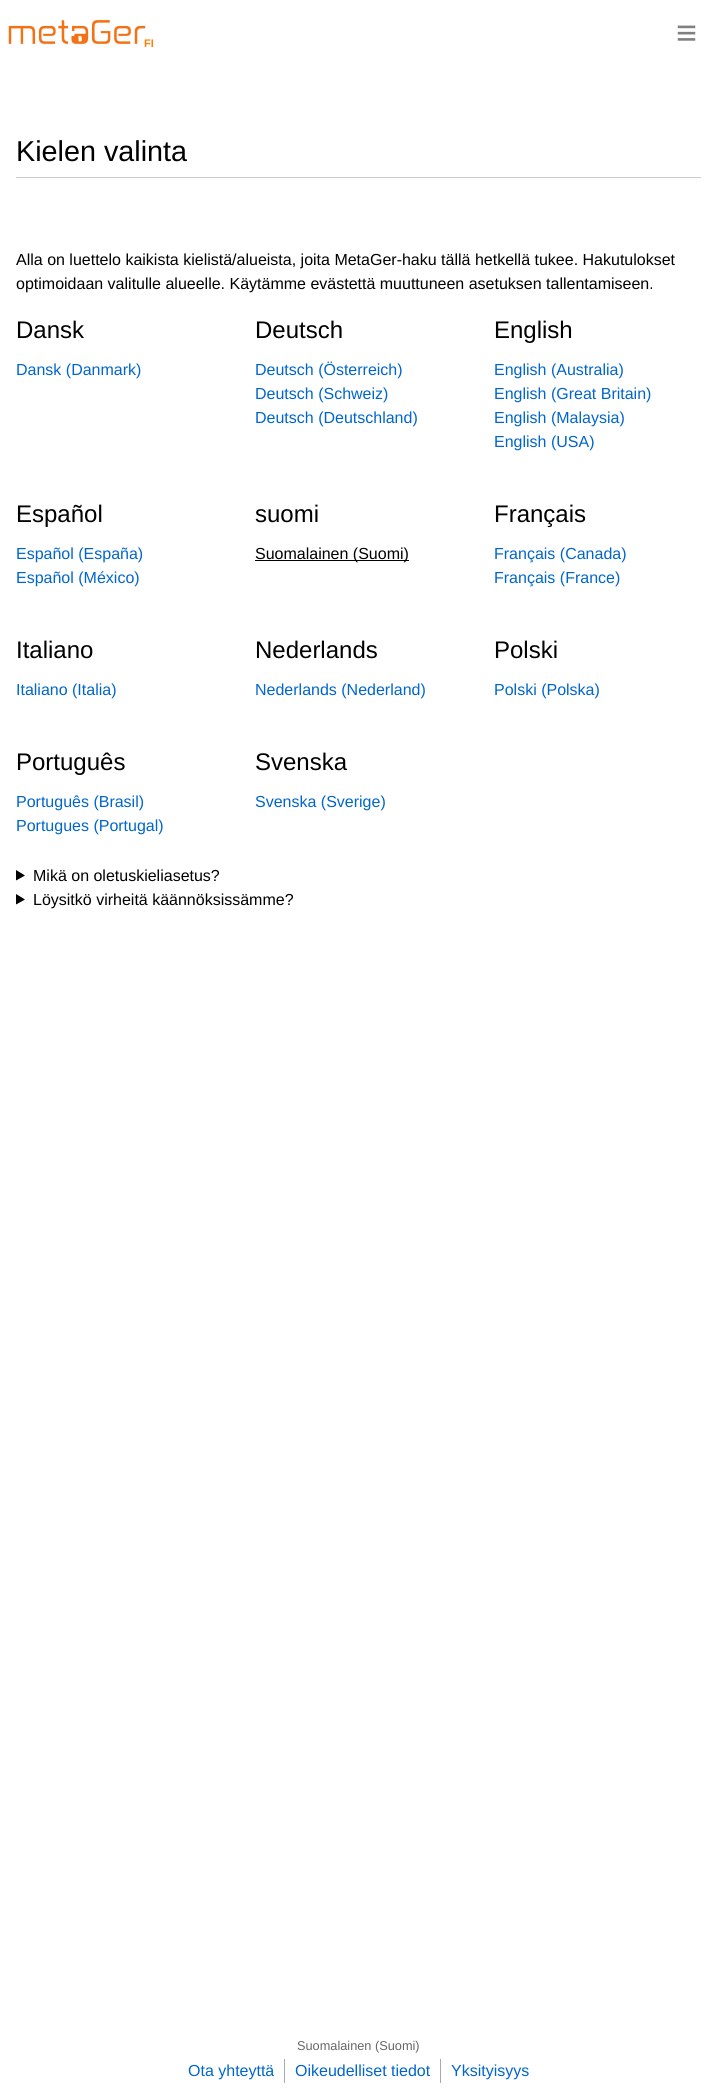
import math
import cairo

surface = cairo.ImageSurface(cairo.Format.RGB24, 717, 2098)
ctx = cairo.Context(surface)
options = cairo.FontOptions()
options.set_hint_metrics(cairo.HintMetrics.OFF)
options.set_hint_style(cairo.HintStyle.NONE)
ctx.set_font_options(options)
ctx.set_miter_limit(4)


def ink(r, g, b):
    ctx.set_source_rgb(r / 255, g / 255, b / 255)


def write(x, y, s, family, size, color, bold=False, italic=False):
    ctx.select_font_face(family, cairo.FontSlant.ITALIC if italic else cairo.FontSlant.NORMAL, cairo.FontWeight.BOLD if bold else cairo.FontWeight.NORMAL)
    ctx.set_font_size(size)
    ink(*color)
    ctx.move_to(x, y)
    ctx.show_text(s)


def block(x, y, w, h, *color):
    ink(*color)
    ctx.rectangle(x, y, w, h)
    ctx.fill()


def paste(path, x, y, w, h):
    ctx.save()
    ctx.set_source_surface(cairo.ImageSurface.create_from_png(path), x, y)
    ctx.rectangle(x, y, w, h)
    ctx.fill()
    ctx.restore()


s1 = dict(family="Liberation Sans", size=36, color=(128, 128, 128), bold=True)
s2 = dict(family="Liberation Sans", size=11, color=(255, 128, 0), bold=True)
s3 = dict(family="Liberation Sans", size=28.75, color=(0, 0, 0))
s4 = dict(family="Liberation Sans", size=16, color=(0, 0, 0))
s5 = dict(family="Liberation Sans", size=24, color=(0, 0, 0))
s6 = dict(family="Liberation Sans", size=16, color=(0, 102, 204))
s7 = dict(family="Liberation Sans", size=12.75, color=(102, 102, 102))

ink(255, 255, 255)
ctx.paint()
write(676, 45, "≡", **s1)
write(144, 47, "FI", **s2)
paste("pic1.png", 8, 20, 138, 24)
block(16, 177, 685, 1, 204, 204, 204)
write(16, 161, "Kielen valinta", **s3)
write(16, 265, "Alla on luettelo kaikista kielistä/alueista, joita MetaGer-haku tällä hetkellä tukee. Hakutulokset", **s4)
write(16, 289, "optimoidaan valitulle alueelle. Käytämme evästettä muuttuneen asetuksen tallentamiseen.", **s4)
write(16, 338, "Dansk", **s5)
write(16, 375, "Dansk (Danmark)", **s6)
write(255, 338, "Deutsch", **s5)
write(255, 375, "Deutsch (Österreich)", **s6)
write(255, 399, "Deutsch (Schweiz)", **s6)
write(255, 423, "Deutsch (Deutschland)", **s6)
write(494, 338, "English", **s5)
write(494, 375, "English (Australia)", **s6)
write(494, 399, "English (Great Britain)", **s6)
write(494, 423, "English (Malaysia)", **s6)
write(494, 447, "English (USA)", **s6)
write(16, 522, "Español", **s5)
write(16, 559, "Español (España)", **s6)
write(16, 583, "Español (México)", **s6)
write(255, 522, "suomi", **s5)
block(255, 560, 154, 1, 0, 0, 0)
write(255, 559, "Suomalainen (Suomi)", **s4)
write(494, 522, "Français", **s5)
write(494, 559, "Français (Canada)", **s6)
write(494, 583, "Français (France)", **s6)
write(16, 658, "Italiano", **s5)
write(16, 695, "Italiano (Italia)", **s6)
write(255, 658, "Nederlands", **s5)
write(255, 695, "Nederlands (Nederland)", **s6)
write(494, 658, "Polski", **s5)
write(494, 695, "Polski (Polska)", **s6)
write(16, 770, "Português", **s5)
write(16, 807, "Português (Brasil)", **s6)
write(16, 831, "Portugues (Portugal)", **s6)
write(255, 770, "Svenska", **s5)
write(255, 807, "Svenska (Sverige)", **s6)
ink(0, 0, 0)
ctx.new_path()
ctx.move_to(16, 870)
ctx.line_to(25, 875.5)
ctx.line_to(16, 880.5)
ctx.close_path()
ctx.fill()
write(33, 881, "Mikä on oletuskieliasetus?", **s4)
ctx.new_path()
ctx.move_to(16, 894)
ctx.line_to(25, 899.5)
ctx.line_to(16, 904.5)
ctx.close_path()
ctx.fill()
write(33, 905, "Löysitkö virheitä käännöksissämme?", **s4)
write(297, 2050, "Suomalainen (Suomi)", **s7)
write(188, 2076, "Ota yhteyttä", **s6)
block(284, 2059, 1, 24, 170, 170, 170)
write(295, 2076, "Oikeudelliset tiedot", **s6)
block(440, 2059, 1, 24, 170, 170, 170)
write(451, 2076, "Yksityisyys", **s6)
surface.write_to_png("screenshot.png")
